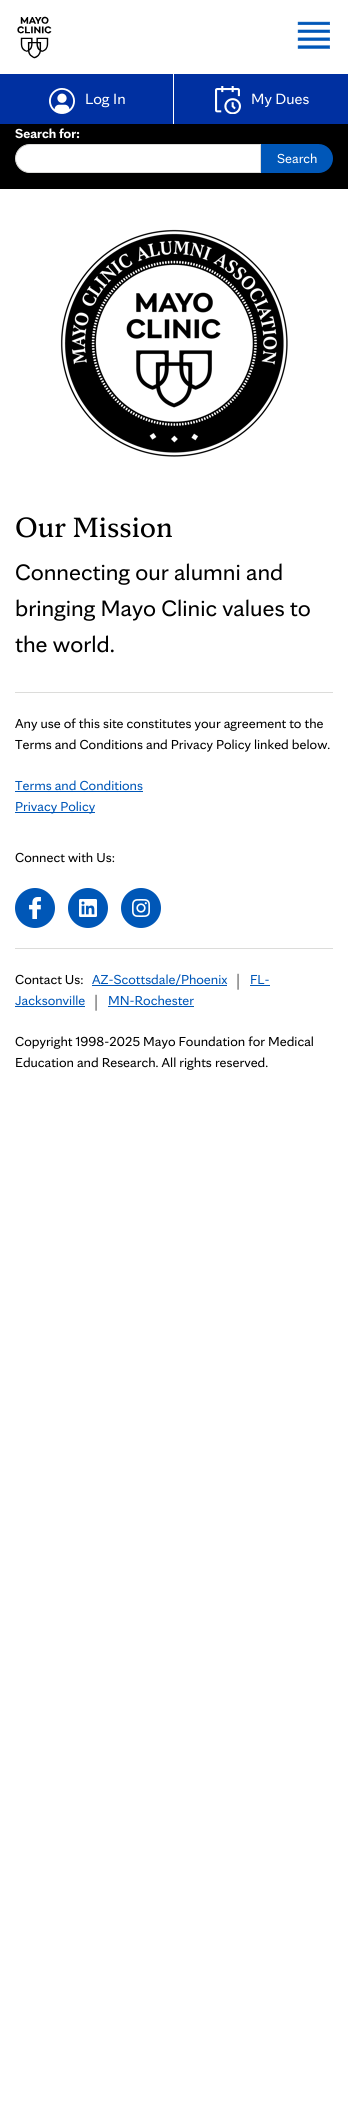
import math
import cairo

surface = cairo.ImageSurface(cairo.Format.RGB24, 348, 2114)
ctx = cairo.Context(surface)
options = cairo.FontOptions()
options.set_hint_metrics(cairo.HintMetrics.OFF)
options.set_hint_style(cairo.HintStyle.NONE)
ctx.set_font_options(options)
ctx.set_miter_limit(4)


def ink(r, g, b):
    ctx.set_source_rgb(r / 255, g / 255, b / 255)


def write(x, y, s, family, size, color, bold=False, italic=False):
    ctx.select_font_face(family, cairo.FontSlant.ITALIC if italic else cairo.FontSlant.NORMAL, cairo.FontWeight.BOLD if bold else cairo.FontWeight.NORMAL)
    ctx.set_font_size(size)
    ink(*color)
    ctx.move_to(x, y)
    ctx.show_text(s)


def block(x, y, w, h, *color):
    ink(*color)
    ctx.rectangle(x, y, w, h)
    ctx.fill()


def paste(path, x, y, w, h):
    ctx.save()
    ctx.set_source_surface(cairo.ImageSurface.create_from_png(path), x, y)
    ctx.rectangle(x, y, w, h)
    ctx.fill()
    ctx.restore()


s1 = dict(family="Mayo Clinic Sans", size=16, color=(255, 255, 255))
s2 = dict(family="Mayo Clinic Sans", size=14, color=(255, 255, 255), bold=True)
s3 = dict(family="Mayo Clinic Sans", size=14, color=(255, 255, 255))
s4 = dict(family="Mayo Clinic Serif", size=30, color=(0, 0, 0))
s5 = dict(family="Mayo Clinic Sans", size=24, color=(0, 0, 0))
s6 = dict(family="Mayo Clinic Sans", size=14, color=(0, 0, 0))
s7 = dict(family="Mayo Clinic Sans", size=14, color=(0, 87, 184))
s8 = dict(family="Mayo Clinic Sans", size=18, color=(99, 99, 99))

ink(255, 255, 255)
ctx.paint()
paste("pic1.png", 17, 16, 35, 43)
paste("pic2.png", 297, 21, 33, 28)
block(0, 74, 348, 50, 0, 48, 161)
block(173, 74, 1, 50, 255, 255, 255)
paste("pic3.png", 49, 88, 26, 26)
write(85, 104, "Log In", **s1)
paste("pic4.png", 215, 86, 26, 28)
write(251, 104, "My Dues", **s1)
block(0, 124, 348, 65, 0, 0, 0)
write(15, 138, "Search for:", **s2)
ctx.new_path()
ctx.move_to(29.5, 144.5)
ctx.line_to(260.5, 144.5)
ctx.line_to(260.5, 172.5)
ctx.line_to(29.5, 172.5)
ctx.curve_to(22, 172.5, 15.5, 166, 15.5, 158.5)
ctx.curve_to(15.5, 151, 22, 144.5, 29.5, 144.5)
ctx.close_path()
ctx.fill_preserve()
ink(220, 220, 218)
ctx.set_line_width(1)
ctx.stroke()
ink(0, 87, 184)
ctx.new_path()
ctx.move_to(261, 144)
ctx.line_to(318.5, 144)
ctx.curve_to(326.5, 144, 333, 150.5, 333, 158.5)
ctx.curve_to(333, 166.5, 326.5, 173, 318.5, 173)
ctx.line_to(261, 173)
ctx.close_path()
ctx.fill()
write(277, 163, "Search", **s3)
paste("pic5.png", 60, 229, 228, 228)
block(15, 692, 318, 1, 220, 220, 218)
write(15, 537, "Our Mission", **s4)
write(15, 580, "Connecting our alumni and", **s5)
write(15, 616, "bringing Mayo Clinic values to", **s5)
write(15, 652, "the world.", **s5)
write(15, 728, "Any use of this site constitutes your agreement to the", **s6)
write(15, 749, "Terms and Conditions and Privacy Policy linked below.", **s6)
write(15, 790, "Terms and Conditions", **s7)
block(15, 791, 128, 1, 0, 87, 184)
block(15, 812, 80, 1, 0, 87, 184)
write(15, 811, "Privacy Policy", **s7)
write(15, 862, "Connect with Us:", **s6)
ink(0, 87, 183)
ctx.new_path()
ctx.arc(35, 908, 20, 0, 2 * math.pi)
ctx.fill()
paste("pic6.png", 29, 897, 12, 22)
ctx.arc(88, 908, 20, 0, 2 * math.pi)
ctx.fill()
paste("pic7.png", 79, 899, 18, 18)
ctx.arc(141, 908, 20, 0, 2 * math.pi)
ctx.fill()
paste("pic8.png", 132, 899, 18, 18)
block(15, 948, 318, 1, 220, 220, 218)
write(236, 987, "|", **s8)
write(250, 984, "FL-", **s7)
block(250, 985, 20, 1, 0, 87, 184)
write(15, 1005, "Jacksonville", **s7)
block(15, 1006, 70, 1, 0, 87, 184)
write(15, 984, "Contact Us:", **s6)
block(92, 985, 135, 1, 0, 87, 184)
write(92, 984, "AZ-Scottsdale/Phoenix", **s7)
write(94, 1008, "|", **s8)
write(108, 1005, "MN-Rochester", **s7)
block(108, 1006, 86, 1, 0, 87, 184)
write(15, 1046, "Copyright 1998-2025 Mayo Foundation for Medical", **s6)
write(15, 1067, "Education and Research. All rights reserved.", **s6)
surface.write_to_png("screenshot.png")
